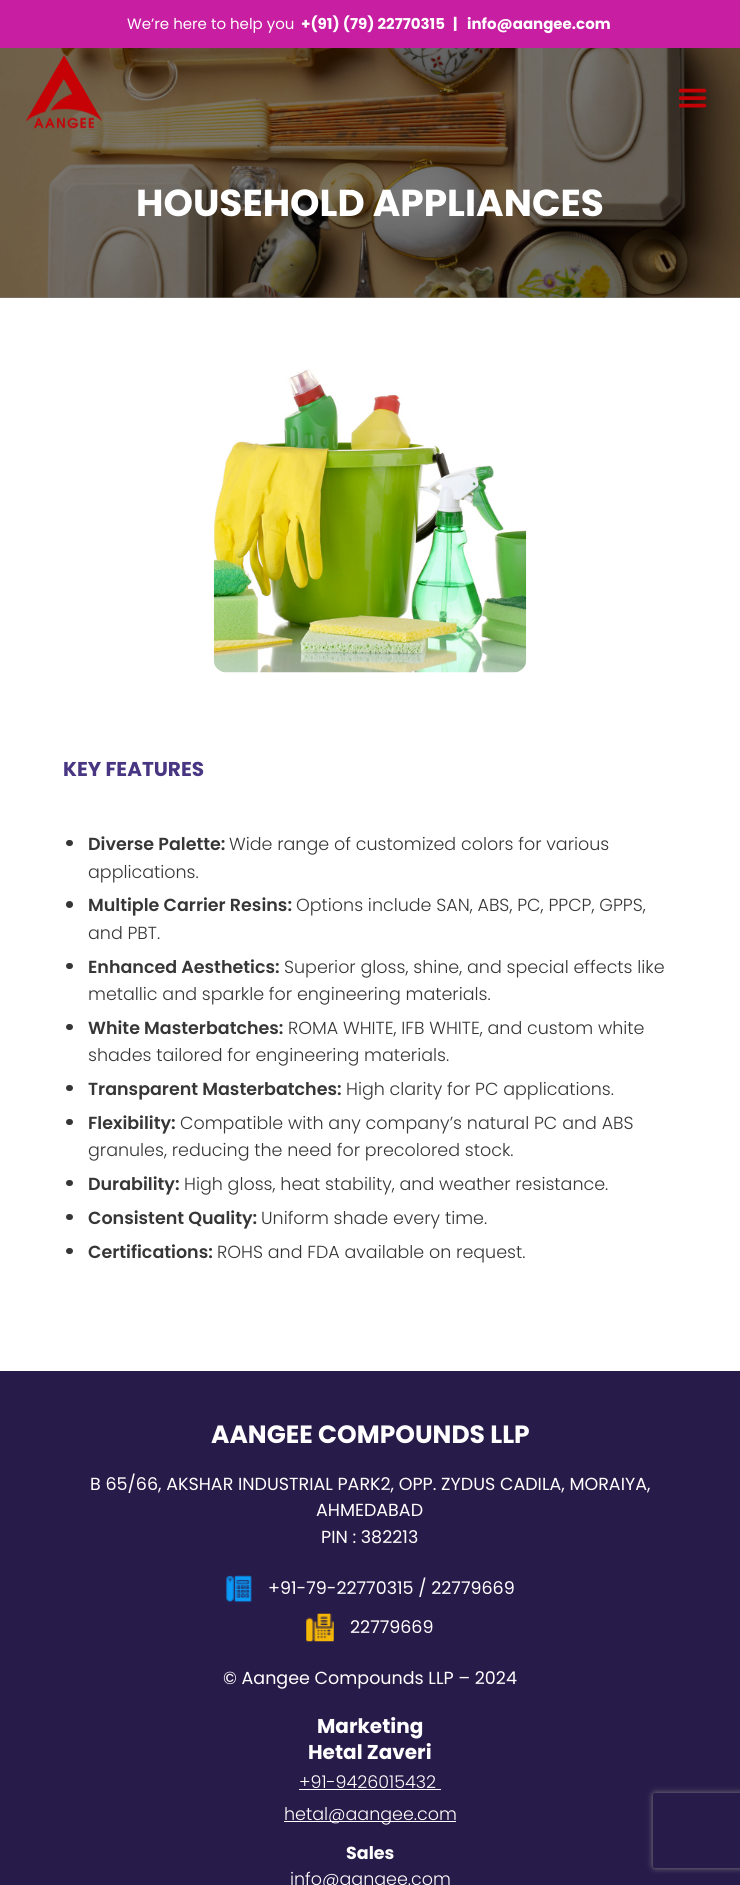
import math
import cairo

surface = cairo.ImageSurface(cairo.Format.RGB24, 740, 1885)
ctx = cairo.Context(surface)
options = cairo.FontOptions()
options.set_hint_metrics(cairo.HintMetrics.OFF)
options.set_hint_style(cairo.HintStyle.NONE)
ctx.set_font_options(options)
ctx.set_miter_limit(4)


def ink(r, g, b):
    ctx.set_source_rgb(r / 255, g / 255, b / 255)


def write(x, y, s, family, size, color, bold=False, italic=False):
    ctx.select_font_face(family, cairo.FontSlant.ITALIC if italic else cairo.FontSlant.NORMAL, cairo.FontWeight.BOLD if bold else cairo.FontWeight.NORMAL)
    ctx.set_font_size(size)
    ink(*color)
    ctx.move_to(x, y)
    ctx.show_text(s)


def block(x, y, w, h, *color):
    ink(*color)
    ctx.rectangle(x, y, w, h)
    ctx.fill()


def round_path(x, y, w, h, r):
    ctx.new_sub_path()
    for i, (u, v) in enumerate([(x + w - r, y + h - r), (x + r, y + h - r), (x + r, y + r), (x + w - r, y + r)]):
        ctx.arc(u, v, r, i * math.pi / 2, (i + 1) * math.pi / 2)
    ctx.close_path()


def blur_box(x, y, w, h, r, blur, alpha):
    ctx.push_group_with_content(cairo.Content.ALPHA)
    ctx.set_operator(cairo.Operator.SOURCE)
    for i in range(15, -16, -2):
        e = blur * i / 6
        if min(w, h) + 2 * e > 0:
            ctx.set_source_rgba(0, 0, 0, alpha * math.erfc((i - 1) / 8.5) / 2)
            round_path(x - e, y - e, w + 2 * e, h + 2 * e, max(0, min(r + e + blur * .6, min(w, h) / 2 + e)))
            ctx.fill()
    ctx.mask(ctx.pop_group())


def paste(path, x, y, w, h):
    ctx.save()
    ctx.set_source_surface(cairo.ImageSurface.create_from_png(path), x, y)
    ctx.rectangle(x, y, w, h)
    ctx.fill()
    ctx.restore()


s1 = dict(family="Poppins", size=15, color=(255, 255, 255))
s2 = dict(family="Poppins", size=15, color=(255, 255, 255), bold=True)
s3 = dict(family="Poppins", size=37.5, color=(255, 255, 255), bold=True)
s4 = dict(family="Poppins", size=20, color=(72, 54, 131), bold=True)
s5 = dict(family="Poppins SemiBold", size=17.5, color=(54, 54, 54))
s6 = dict(family="Poppins Light", size=17.5, color=(54, 54, 54))
s7 = dict(family="Poppins", size=25, color=(255, 255, 255), bold=True)
s8 = dict(family="Poppins", size=17.5, color=(255, 255, 255))
s9 = dict(family="Poppins", size=20, color=(255, 255, 255), bold=True)
s10 = dict(family="Poppins Light", size=17.5, color=(255, 255, 255))
s11 = dict(family="Poppins", size=17.5, color=(255, 255, 255), bold=True)

ink(255, 255, 255)
ctx.paint()
block(0, 297, 740, 1, 128, 128, 128)
block(0, 0, 740, 48, 200, 30, 162)
write(127, 29, "We’re here to help you", **s1)
write(301, 29, "+(91) (79) 22770315", **s2)
write(453, 29, "|", **s2)
write(467, 29, "info@aangee.com", **s2)
paste("pic3.png", 0, 48, 740, 250)
paste("pic1.png", 25, 55, 77, 74)
paste("pic2.png", 678, 88, 29, 20)
write(136, 216, "HOUSEHOLD APPLIANCES", **s3)
paste("pic4.png", 213, 369, 314, 304)
write(63, 776, "KEY FEATURES", **s4)
ink(54, 54, 54)
round_path(66, 840, 7, 6, 3)
ctx.fill()
write(88, 850, "Diverse Palette:", **s5)
write(229, 850, "Wide range of customized colors for various", **s6)
write(88, 878, "applications.", **s6)
ctx.new_path()
ctx.arc(69.5, 904.5, 3.5, 0, 2 * math.pi)
ctx.fill()
write(88, 911, "Multiple Carrier Resins:", **s5)
write(296, 911, "Options include SAN, ABS, PC, PPCP, GPPS,", **s6)
write(88, 939, "and PBT.", **s6)
round_path(66, 963, 7, 6, 3)
ctx.fill()
write(88, 973, "Enhanced Aesthetics:", **s5)
write(284, 973, "Superior gloss, shine, and special effects like", **s6)
write(88, 1000, "metallic and sparkle for engineering materials.", **s6)
round_path(66, 1024, 7, 6, 3)
ctx.fill()
write(88, 1034, "White Masterbatches:", **s5)
write(288, 1034, "ROMA WHITE, IFB WHITE, and custom white", **s6)
write(88, 1061, "shades tailored for engineering materials.", **s6)
round_path(66, 1085, 7, 6, 3)
ctx.fill()
write(88, 1095, "Transparent Masterbatches:", **s5)
write(346, 1095, "High clarity for PC applications.", **s6)
round_path(66, 1119, 7, 6, 3)
ctx.fill()
write(88, 1129, "Flexibility:", **s5)
write(180, 1129, "Compatible with any company’s natural PC and ABS", **s6)
write(88, 1156, "granules, reducing the need for precolored stock.", **s6)
round_path(66, 1180, 7, 6, 3)
ctx.fill()
write(88, 1190, "Durability:", **s5)
write(184, 1190, "High gloss, heat stability, and weather resistance.", **s6)
round_path(66, 1214, 7, 6, 3)
ctx.fill()
write(88, 1224, "Consistent Quality:", **s5)
write(261, 1224, "Uniform shade every time.", **s6)
round_path(66, 1248, 7, 6, 3)
ctx.fill()
write(88, 1258, "Certifications:", **s5)
write(217, 1258, "ROHS and FDA available on request.", **s6)
block(0, 1371, 740, 514, 39, 27, 73)
write(211, 1443, "AANGEE COMPOUNDS LLP", **s7)
write(90, 1490, "B 65/66, AKSHAR INDUSTRIAL PARK2, OPP. ZYDUS CADILA, MORAIYA,", **s8)
write(316, 1516, "AHMEDABAD", **s8)
write(321, 1543, "PIN : 382213", **s8)
paste("pic5.png", 226, 1575, 26, 28)
write(268, 1594, "+91-79-22770315 / 22779669", **s8)
paste("pic6.png", 306, 1613, 28, 29)
write(350, 1633, "22779669", **s8)
write(223, 1684, "© Aangee Compounds LLP – 2024", **s8)
write(317, 1733, "Marketing", **s9)
write(308, 1759, "Hetal Zaveri", **s9)
write(299, 1788, "+91-9426015432", **s10)
block(299, 1789, 142, 1, 255, 255, 255)
block(284, 1821, 172, 1, 255, 255, 255)
write(284, 1820, "hetal@aangee.com", **s10)
write(346, 1859, "Sales", **s11)
write(290, 1885, "info@aangee.com", **s10)
ctx.save()
ctx.set_fill_rule(cairo.FillRule.EVEN_ODD)
ctx.new_path()
ctx.move_to(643, 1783)
ctx.line_to(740, 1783)
ctx.line_to(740, 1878)
ctx.line_to(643, 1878)
ctx.close_path()
ctx.move_to(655.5, 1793)
ctx.line_to(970.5, 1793)
ctx.curve_to(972, 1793, 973, 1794, 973, 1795.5)
ctx.line_to(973, 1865.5)
ctx.curve_to(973, 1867, 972, 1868, 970.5, 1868)
ctx.line_to(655.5, 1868)
ctx.curve_to(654, 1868, 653, 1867, 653, 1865.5)
ctx.line_to(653, 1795.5)
ctx.curve_to(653, 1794, 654, 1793, 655.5, 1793)
ctx.close_path()
ctx.clip()
ink(128, 128, 128)
blur_box(653, 1793, 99, 75, 2.5, 3, 1)
ctx.restore()
surface.write_to_png("screenshot.png")
